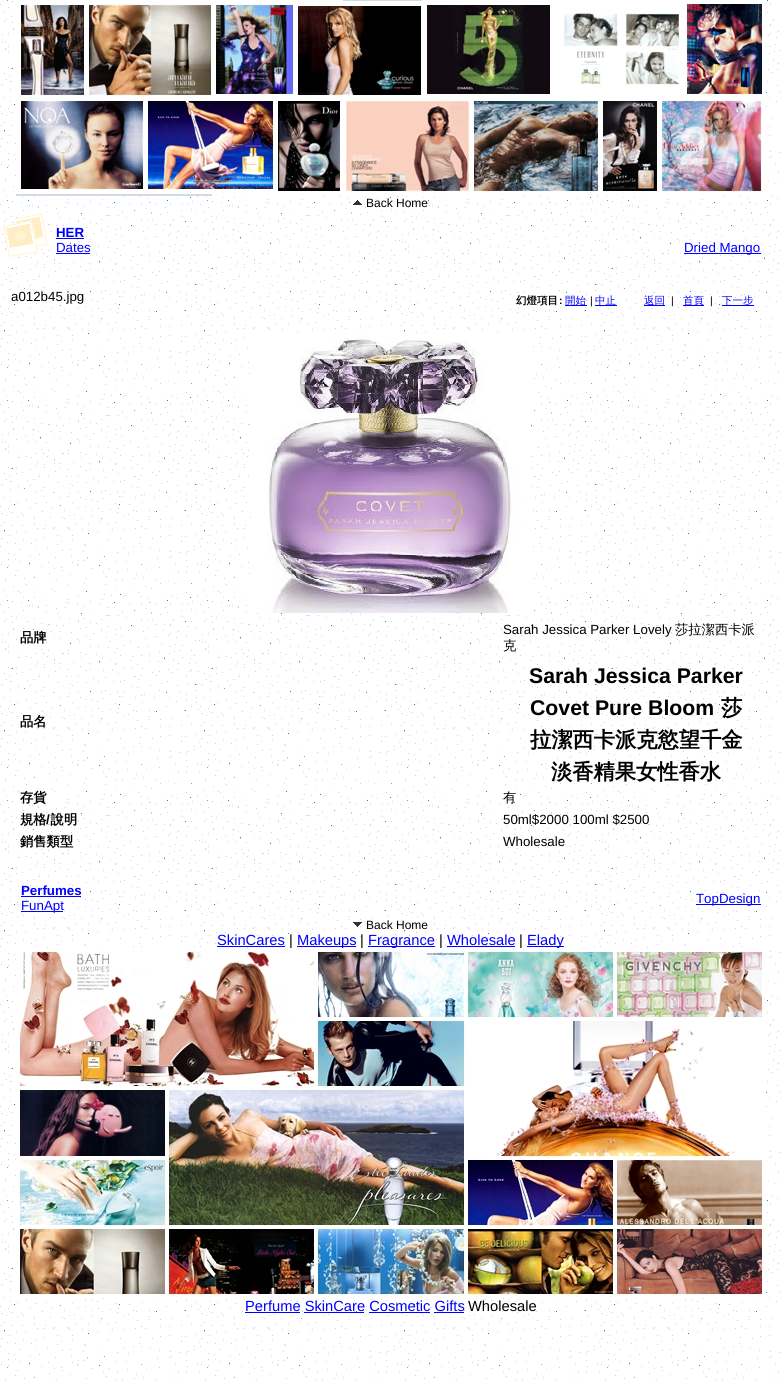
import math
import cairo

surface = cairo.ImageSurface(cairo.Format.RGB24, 781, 1381)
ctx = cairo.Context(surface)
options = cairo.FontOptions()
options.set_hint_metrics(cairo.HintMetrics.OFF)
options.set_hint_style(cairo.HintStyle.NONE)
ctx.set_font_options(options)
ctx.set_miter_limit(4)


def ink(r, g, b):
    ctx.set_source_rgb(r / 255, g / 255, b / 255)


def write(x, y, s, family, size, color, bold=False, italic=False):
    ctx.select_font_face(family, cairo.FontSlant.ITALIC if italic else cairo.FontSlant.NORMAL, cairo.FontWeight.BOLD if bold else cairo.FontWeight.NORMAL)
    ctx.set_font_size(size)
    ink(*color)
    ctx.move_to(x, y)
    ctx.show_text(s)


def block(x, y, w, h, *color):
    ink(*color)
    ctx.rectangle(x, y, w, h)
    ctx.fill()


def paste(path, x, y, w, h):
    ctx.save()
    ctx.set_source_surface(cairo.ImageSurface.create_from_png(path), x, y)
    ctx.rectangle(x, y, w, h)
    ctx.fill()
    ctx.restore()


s1 = dict(family="Liberation Sans", size=12, color=(0, 0, 0))
s2 = dict(family="Liberation Sans", size=13.3, color=(0, 0, 255), bold=True)
s3 = dict(family="Liberation Sans", size=13.3, color=(0, 0, 255))
s4 = dict(family="Liberation Sans", size=13.3, color=(0, 0, 0))
s5 = dict(family="WenQuanYi Zen Hei", size=10.5, color=(0, 0, 0), bold=True)
s6 = dict(family="Liberation Sans", size=10.5, color=(0, 0, 0), bold=True)
s7 = dict(family="WenQuanYi Zen Hei Medium", size=10.5, color=(0, 0, 255))
s8 = dict(family="Liberation Sans", size=10.5, color=(0, 0, 0))
s9 = dict(family="WenQuanYi Zen Hei", size=13.3, color=(0, 0, 0), bold=True)
s10 = dict(family="WenQuanYi Zen Hei Medium", size=13.3, color=(0, 0, 0))
s11 = dict(family="Liberation Sans", size=21.25, color=(0, 0, 0), bold=True)
s12 = dict(family="WenQuanYi Zen Hei", size=21.25, color=(0, 0, 0), bold=True)
s13 = dict(family="Liberation Sans", size=13.3, color=(0, 0, 0), bold=True)
s14 = dict(family="Liberation Sans", size=14.7, color=(0, 0, 255))
s15 = dict(family="Liberation Sans", size=14.7, color=(0, 0, 0))

ink(255, 255, 255)
ctx.paint()
paste("pic1.png", 0, 0, 781, 1381)
paste("pic2.png", 16, 0, 750, 196)
paste("pic3.png", 353, 200, 9, 5)
write(366, 207, "Back Home", **s1)
paste("pic4.png", 3, 213, 45, 44)
write(56, 237, "HER", **s2)
block(56, 238, 28, 1, 0, 0, 255)
write(56, 252, "Dates", **s3)
block(56, 253, 34, 1, 0, 0, 255)
block(684, 253, 77, 1, 0, 0, 255)
write(684, 252, "Dried Mango", **s3)
write(11, 301, "a012b45.jpg", **s4)
write(516, 304, "幻燈項目", **s5)
write(559, 304, ":", **s6)
block(565, 305, 22, 1, 0, 0, 255)
write(565, 304, "開始", **s7)
write(590, 304, "|", **s8)
block(595, 305, 22, 1, 0, 0, 255)
write(595, 304, "中止", **s7)
block(644, 305, 21, 1, 0, 0, 255)
write(644, 304, "返回", **s7)
write(671, 304, "|", **s8)
block(683, 305, 21, 1, 0, 0, 255)
write(683, 304, "首頁", **s7)
write(710, 304, "|", **s8)
block(722, 305, 32, 1, 0, 0, 255)
write(722, 304, "下一步", **s7)
paste("pic5.png", 251, 333, 280, 280)
write(20, 642, "品牌", **s9)
write(503, 634, "Sarah Jessica Parker Lovely", **s4)
write(675, 634, "莎拉潔西卡派", **s10)
write(503, 650, "克", **s10)
write(20, 726, "品名", **s9)
write(529, 683, "Sarah Jessica Parker", **s11)
write(530, 715, "Covet Pure Bloom", **s11)
write(721, 715, "莎", **s12)
write(530, 747, "拉潔西卡派克慾望千金", **s12)
write(551, 779, "淡香精果女性香水", **s12)
write(20, 802, "存貨", **s9)
write(503, 802, "有", **s10)
write(20, 824, "規格 說明", **s9)
write(46, 824, "/", **s13)
write(503, 824, "50ml$2000 100ml $2500", **s4)
write(20, 846, "銷售類型", **s9)
write(503, 846, "Wholesale", **s4)
write(21, 895, "Perfumes", **s2)
block(21, 896, 60, 1, 0, 0, 255)
block(21, 911, 42, 1, 0, 0, 255)
write(21, 910, "FunApt", **s3)
block(696, 904, 65, 1, 0, 0, 255)
write(696, 903, "TopDesign", **s3)
paste("pic6.png", 353, 922, 9, 5)
write(366, 929, "Back Home", **s1)
write(217, 945, "SkinCares", **s14)
block(217, 946, 68, 1, 0, 0, 255)
write(289, 945, "|", **s15)
block(297, 946, 59, 1, 0, 0, 255)
write(297, 945, "Makeups", **s14)
write(360, 945, "|", **s15)
block(368, 946, 67, 1, 0, 0, 255)
write(368, 945, "Fragrance", **s14)
write(439, 945, "|", **s15)
write(447, 945, "Wholesale", **s14)
block(447, 946, 68, 1, 0, 0, 255)
write(519, 945, "|", **s15)
block(527, 946, 37, 1, 0, 0, 255)
write(527, 945, "Elady", **s14)
paste("pic7.png", 16, 948, 750, 350)
write(245, 1311, "Perfume SkinCare Cosmetic Gifts", **s14)
block(245, 1312, 55, 1, 0, 0, 255)
write(468, 1311, "Wholesale", **s15)
block(304, 1312, 60, 1, 0, 0, 255)
block(369, 1312, 61, 1, 0, 0, 255)
block(434, 1312, 30, 1, 0, 0, 255)
surface.write_to_png("screenshot.png")
